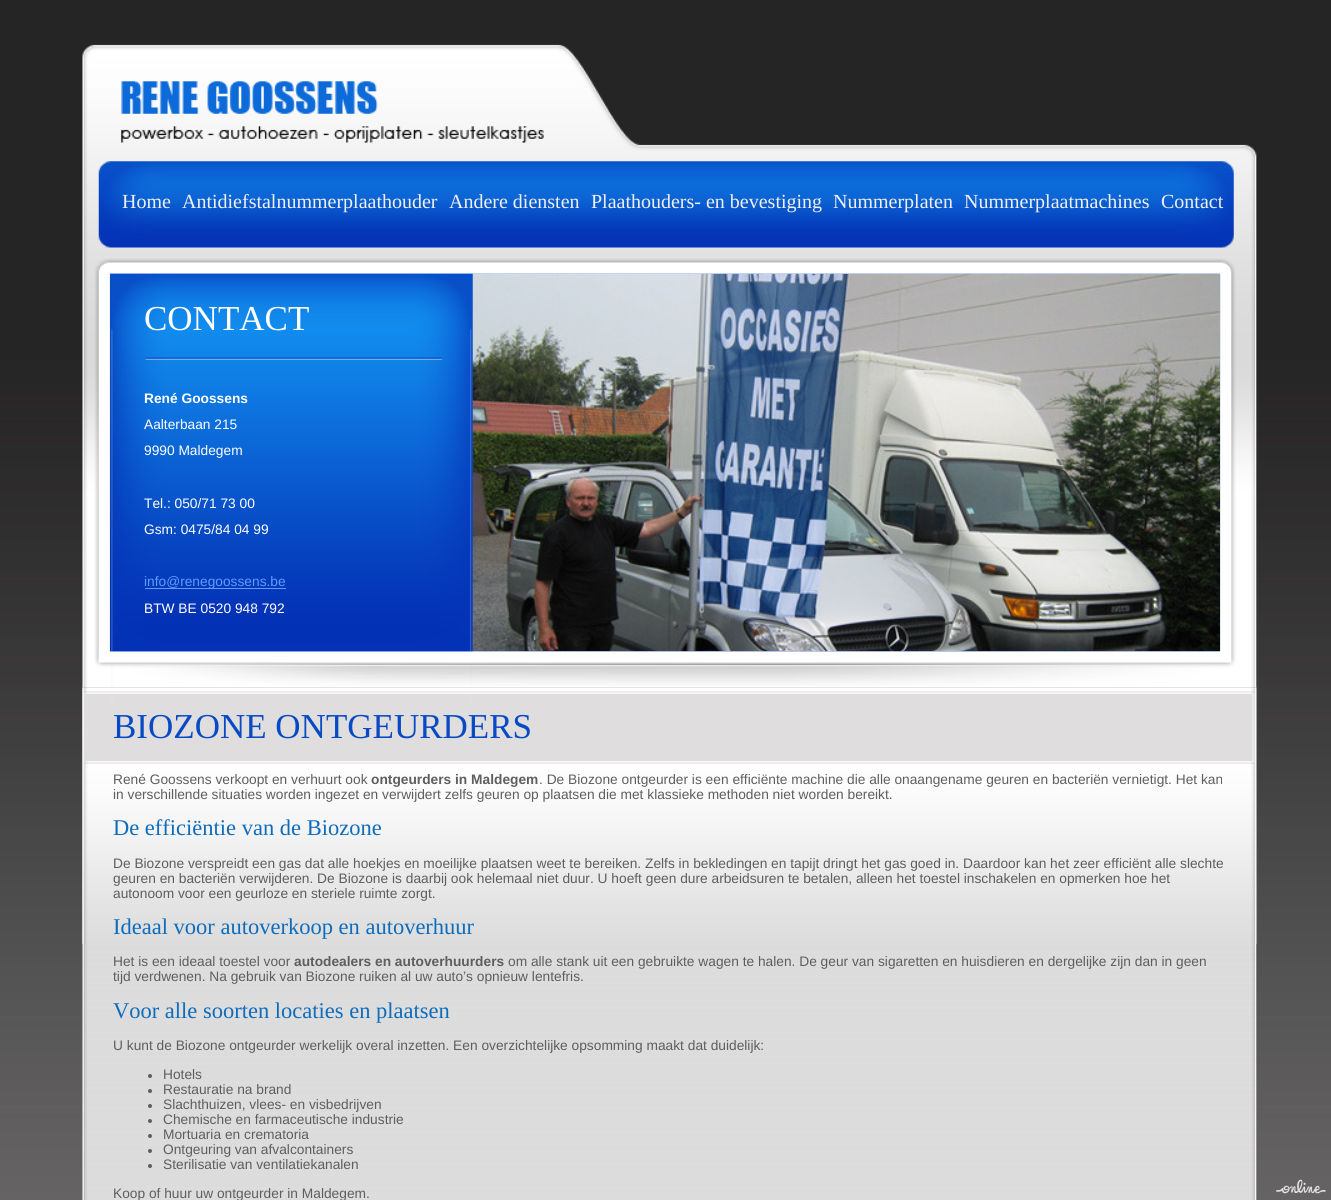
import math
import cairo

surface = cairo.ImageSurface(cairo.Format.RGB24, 1331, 1200)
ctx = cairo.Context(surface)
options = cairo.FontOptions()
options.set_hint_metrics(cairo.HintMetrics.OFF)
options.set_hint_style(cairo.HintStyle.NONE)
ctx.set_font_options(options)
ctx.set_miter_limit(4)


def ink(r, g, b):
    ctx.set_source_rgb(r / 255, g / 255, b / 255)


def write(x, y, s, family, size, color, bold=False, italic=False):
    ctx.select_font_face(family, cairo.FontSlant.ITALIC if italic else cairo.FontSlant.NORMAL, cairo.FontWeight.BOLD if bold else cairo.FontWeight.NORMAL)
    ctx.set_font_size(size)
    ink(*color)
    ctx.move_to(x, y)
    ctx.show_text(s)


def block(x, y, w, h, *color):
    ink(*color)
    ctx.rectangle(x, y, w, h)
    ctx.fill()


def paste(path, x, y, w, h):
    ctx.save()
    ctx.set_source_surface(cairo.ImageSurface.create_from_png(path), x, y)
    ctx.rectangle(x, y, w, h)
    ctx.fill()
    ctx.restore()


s1 = dict(family="Liberation Serif", size=20, color=(240, 240, 240))
s2 = dict(family="Liberation Serif", size=35, color=(255, 255, 255))
s3 = dict(family="Liberation Sans", size=13.75, color=(255, 255, 255), bold=True)
s4 = dict(family="Liberation Sans", size=13.75, color=(255, 255, 255))
s5 = dict(family="Liberation Sans", size=13.75, color=(93, 156, 252))
s6 = dict(family="Liberation Serif", size=35, color=(7, 74, 197))
s7 = dict(family="Liberation Sans", size=13.75, color=(94, 94, 94))
s8 = dict(family="Liberation Sans", size=13.75, color=(94, 94, 94), bold=True)
s9 = dict(family="Liberation Serif", size=22.5, color=(14, 108, 188))

ink(255, 255, 255)
ctx.paint()
paste("pic1.png", 0, 0, 1331, 1200)
paste("pic9.png", 82, 687, 1175, 513)
paste("pic2.png", 82, 44, 1175, 644)
paste("pic3.png", 121, 81, 423, 62)
paste("pic4.png", 98, 161, 1136, 87)
write(122, 208, "Home", **s1)
write(182, 208, "Antidiefstalnummerplaathouder", **s1)
write(449, 208, "Andere diensten", **s1)
write(591, 208, "Plaathouders- en bevestiging", **s1)
write(833, 208, "Nummerplaten", **s1)
write(964, 208, "Nummerplaatmachines", **s1)
write(1161, 208, "Contact", **s1)
paste("pic5.png", 94, 258, 1142, 428)
paste("pic6.png", 110, 273, 363, 379)
write(144, 330, "CONTACT", **s2)
paste("pic7.png", 145, 357, 298, 3)
write(144, 403, "René Goossens", **s3)
write(144, 429, "Aalterbaan 215", **s4)
write(144, 455, "9990 Maldegem", **s4)
write(144, 508, "Tel.: 050/71 73 00", **s4)
write(144, 534, "Gsm: 0475/84 04 99", **s4)
block(145, 588, 141, 1, 93, 156, 252)
write(144, 586, "info@renegoossens.be", **s5)
write(144, 613, "BTW BE 0520 948 792", **s4)
paste("pic8.png", 472, 273, 748, 379)
paste("pic10.png", 82, 687, 1175, 257)
paste("pic11.png", 84, 691, 1171, 73)
write(113, 738, "BIOZONE ONTGEURDERS", **s6)
write(113, 784, "René Goossens verkoopt en verhuurt ook", **s7)
write(371, 784, "ontgeurders in Maldegem", **s8)
write(539, 784, ". De Biozone ontgeurder is een efficiënte machine die alle onaangename geuren en bacteriën vernietigt. Het kan", **s7)
write(113, 799, "in verschillende situaties worden ingezet en verwijdert zelfs geuren op plaatsen die met klassieke methoden niet worden bereikt.", **s7)
write(113, 835, "De efficiëntie van de Biozone", **s9)
write(113, 868, "De Biozone verspreidt een gas dat alle hoekjes en moeilijke plaatsen weet te bereiken. Zelfs in bekledingen en tapijt dringt het gas goed in. Daardoor kan het zeer efficiënt alle slechte", **s7)
write(113, 883, "geuren en bacteriën verwijderen. De Biozone is daarbij ook helemaal niet duur. U hoeft geen dure arbeidsuren te betalen, alleen het toestel inschakelen en opmerken hoe het", **s7)
write(113, 898, "autonoom voor een geurloze en steriele ruimte zorgt.", **s7)
write(113, 934, "Ideaal voor autoverkoop en autoverhuur", **s9)
write(113, 966, "Het is een ideaal toestel voor", **s7)
write(294, 966, "autodealers en autoverhuurders", **s8)
write(508, 966, "om alle stank uit een gebruikte wagen te halen. De geur van sigaretten en huisdieren en dergelijke zijn dan in geen", **s7)
write(113, 981, "tijd verdwenen. Na gebruik van Biozone ruiken al uw auto’s opnieuw lentefris.", **s7)
write(113, 1018, "Voor alle soorten locaties en plaatsen", **s9)
write(113, 1050, "U kunt de Biozone ontgeurder werkelijk overal inzetten. Een overzichtelijke opsomming maakt dat duidelijk:", **s7)
ctx.new_path()
ctx.arc(150, 1076, 2, 0, 2 * math.pi)
ctx.fill()
write(163, 1079, "Hotels", **s7)
ctx.new_path()
ctx.arc(150, 1091, 2, 0, 2 * math.pi)
ctx.fill()
write(163, 1094, "Restauratie na brand", **s7)
ctx.new_path()
ctx.arc(150, 1106, 2, 0, 2 * math.pi)
ctx.fill()
write(163, 1109, "Slachthuizen, vlees- en visbedrijven", **s7)
ctx.new_path()
ctx.arc(150, 1121, 2, 0, 2 * math.pi)
ctx.fill()
write(163, 1124, "Chemische en farmaceutische industrie", **s7)
ctx.new_path()
ctx.arc(150, 1136, 2, 0, 2 * math.pi)
ctx.fill()
write(163, 1139, "Mortuaria en crematoria", **s7)
ctx.new_path()
ctx.arc(150, 1151, 2, 0, 2 * math.pi)
ctx.fill()
write(163, 1154, "Ontgeuring van afvalcontainers", **s7)
ctx.new_path()
ctx.arc(150, 1166, 2, 0, 2 * math.pi)
ctx.fill()
write(163, 1169, "Sterilisatie van ventilatiekanalen", **s7)
write(113, 1198, "Koop of huur uw ontgeurder in Maldegem.", **s7)
paste("pic12.png", 1276, 1179, 50, 15)
surface.write_to_png("screenshot.png")
